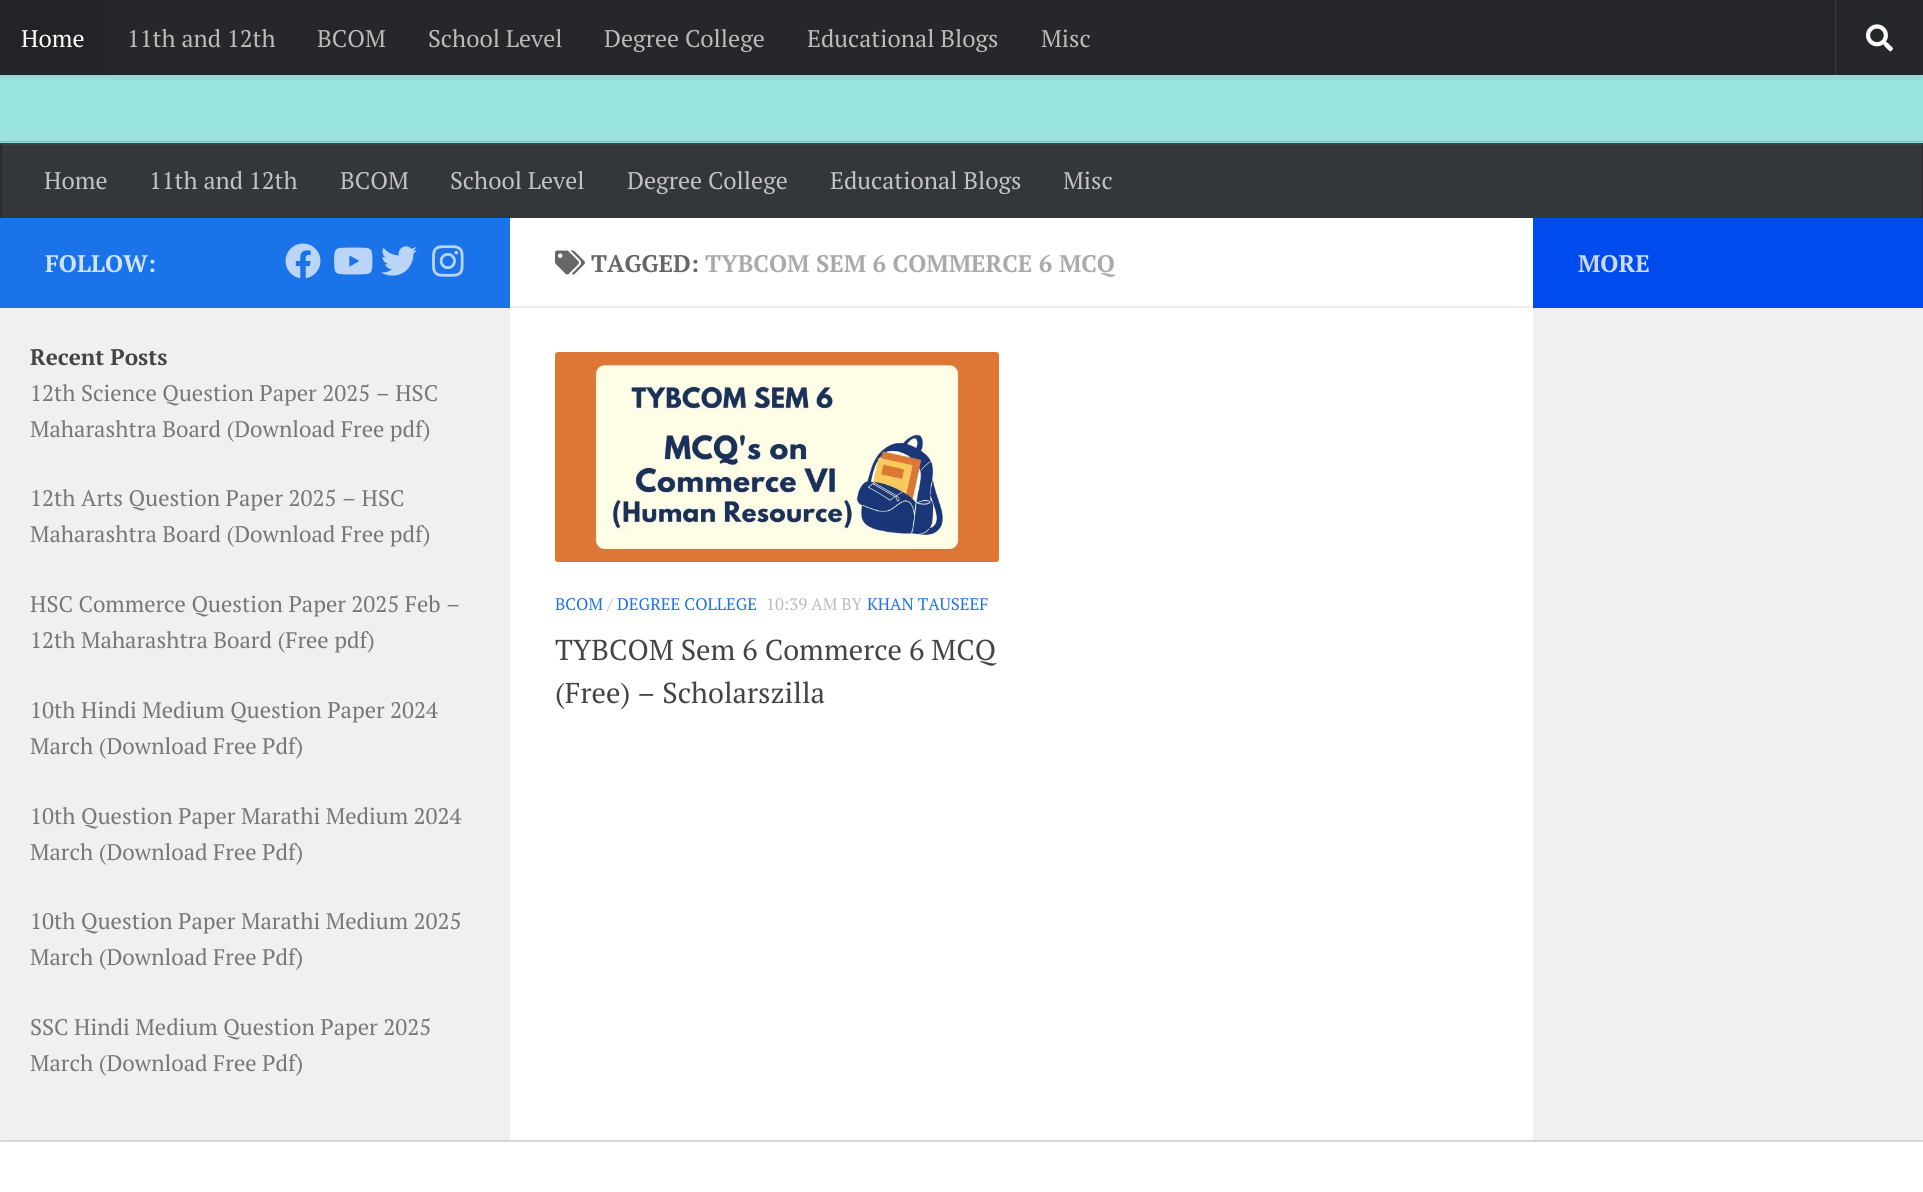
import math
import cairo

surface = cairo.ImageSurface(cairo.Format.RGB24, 1923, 1192)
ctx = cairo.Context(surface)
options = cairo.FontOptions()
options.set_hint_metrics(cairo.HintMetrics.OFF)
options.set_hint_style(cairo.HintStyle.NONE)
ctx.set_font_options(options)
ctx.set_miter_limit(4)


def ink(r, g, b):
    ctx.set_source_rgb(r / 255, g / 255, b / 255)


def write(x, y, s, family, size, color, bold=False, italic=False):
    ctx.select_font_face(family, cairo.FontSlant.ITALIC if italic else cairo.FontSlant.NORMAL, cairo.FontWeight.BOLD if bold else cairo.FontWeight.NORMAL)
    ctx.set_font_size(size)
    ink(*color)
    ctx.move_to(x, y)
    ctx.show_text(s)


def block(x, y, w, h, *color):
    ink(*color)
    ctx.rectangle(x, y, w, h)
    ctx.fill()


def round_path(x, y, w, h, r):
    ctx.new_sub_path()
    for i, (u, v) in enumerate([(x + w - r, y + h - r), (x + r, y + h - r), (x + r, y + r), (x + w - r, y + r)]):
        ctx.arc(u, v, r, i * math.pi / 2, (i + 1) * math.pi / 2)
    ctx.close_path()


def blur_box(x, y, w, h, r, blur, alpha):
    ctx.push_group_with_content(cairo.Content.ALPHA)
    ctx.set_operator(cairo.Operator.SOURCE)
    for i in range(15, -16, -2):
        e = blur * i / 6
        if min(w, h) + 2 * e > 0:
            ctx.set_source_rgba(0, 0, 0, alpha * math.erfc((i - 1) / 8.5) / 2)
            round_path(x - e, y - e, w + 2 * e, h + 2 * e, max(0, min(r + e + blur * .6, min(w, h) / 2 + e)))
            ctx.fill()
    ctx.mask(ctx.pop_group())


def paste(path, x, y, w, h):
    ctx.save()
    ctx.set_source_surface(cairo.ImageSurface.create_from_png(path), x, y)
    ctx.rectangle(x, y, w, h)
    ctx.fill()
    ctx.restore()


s1 = dict(family="PT Serif", size=24, color=(255, 255, 255))
s2 = dict(family="PT Serif", size=24, color=(187, 187, 187))
s3 = dict(family="PT Serif", size=24, color=(194, 195, 196))
s4 = dict(family="PT Serif", size=24, color=(209, 227, 250), bold=True)
s5 = dict(family="PT Serif", size=22.5, color=(68, 68, 68), bold=True)
s6 = dict(family="PT Serif", size=22.5, color=(119, 119, 119))
s7 = dict(family="PT Serif", size=24, color=(102, 102, 102), bold=True)
s8 = dict(family="PT Serif", size=24, color=(170, 170, 170), bold=True)
s9 = dict(family="PT Serif", size=16.75, color=(26, 115, 232))
s10 = dict(family="PT Serif", size=16.75, color=(187, 187, 187))
s11 = dict(family="PT Serif", size=28.75, color=(68, 68, 68))
s12 = dict(family="PT Serif", size=24, color=(204, 219, 251), bold=True)

ink(234, 234, 234)
ctx.paint()
ctx.set_source_rgba(0, 0.859, 0.788, 0.34)
ctx.rectangle(0, 77, 1923, 66)
ctx.fill()
block(0, 75, 1923, 2, 170, 233, 228)
ink(0, 0, 0)
blur_box(0, 0, 1923, 75, 0, 4, 0.2)
block(105, 0, 1818, 75, 38, 39, 43)
block(0, 0, 105, 75, 34, 35, 39)
write(21, 47, "Home", **s1)
write(127, 47, "11th and 12th", **s2)
write(317, 47, "BCOM", **s2)
write(428, 47, "School Level", **s2)
write(604, 47, "Degree College", **s2)
write(807, 47, "Educational Blogs", **s2)
write(1041, 47, "Misc", **s2)
block(1835, 0, 1, 75, 60, 61, 64)
paste("pic1.png", 1866, 24, 27, 28)
block(0, 141, 1923, 1, 124, 183, 178)
ink(0, 0, 0)
blur_box(0, 219, 1923, 923, 0, 1, 0.1)
block(2, 143, 1920, 75, 51, 54, 59)
block(1922, 143, 1, 75, 41, 43, 47)
block(0, 143, 2, 75, 41, 43, 47)
ctx.set_source_rgba(1, 1, 1, 0.05)
ctx.rectangle(0, 143, 1923, 2)
ctx.fill()
write(44, 189, "Home", **s3)
write(149, 189, "11th and 12th", **s3)
write(340, 189, "BCOM", **s3)
write(450, 189, "School Level", **s3)
write(627, 189, "Degree College", **s3)
write(830, 189, "Educational Blogs", **s3)
write(1063, 189, "Misc", **s3)
block(510, 218, 1023, 922, 255, 255, 255)
block(0, 218, 510, 90, 26, 115, 232)
write(45, 272, "FOLLOW:", **s4)
paste("pic2.png", 285, 243, 36, 36)
paste("pic3.png", 334, 247, 39, 28)
paste("pic4.png", 381, 246, 36, 30)
paste("pic5.png", 432, 245, 32, 32)
block(0, 308, 510, 832, 240, 240, 240)
write(30, 365, "Recent Posts", **s5)
write(30, 401, "12th Science Question Paper 2025 – HSC", **s6)
write(30, 437, "Maharashtra Board (Download Free pdf)", **s6)
write(30, 506, "12th Arts Question Paper 2025 – HSC", **s6)
write(30, 542, "Maharashtra Board (Download Free pdf)", **s6)
write(30, 612, "HSC Commerce Question Paper 2025 Feb –", **s6)
write(30, 648, "12th Maharashtra Board (Free pdf)", **s6)
write(30, 718, "10th Hindi Medium Question Paper 2024", **s6)
write(30, 754, "March (Download Free Pdf)", **s6)
write(30, 824, "10th Question Paper Marathi Medium 2024", **s6)
write(30, 860, "March (Download Free Pdf)", **s6)
write(30, 929, "10th Question Paper Marathi Medium 2025", **s6)
write(30, 965, "March (Download Free Pdf)", **s6)
write(30, 1035, "SSC Hindi Medium Question Paper 2025", **s6)
write(30, 1071, "March (Download Free Pdf)", **s6)
block(510, 306, 1023, 2, 238, 238, 238)
paste("pic6.png", 555, 250, 30, 25)
write(591, 272, "TAGGED:", **s7)
write(705, 272, "TYBCOM SEM 6 COMMERCE 6 MCQ", **s8)
paste("pic7.png", 555, 352, 444, 210)
write(555, 610, "BCOM", **s9)
write(607, 610, "/", **s10)
write(617, 610, "DEGREE COLLEGE", **s9)
write(766, 610, "10:39 AM BY", **s10)
write(867, 610, "KHAN TAUSEEF", **s9)
write(555, 660, "TYBCOM Sem 6 Commerce 6 MCQ", **s11)
write(555, 703, "(Free) – Scholarszilla", **s11)
block(1533, 218, 390, 90, 0, 75, 237)
write(1578, 272, "MORE", **s12)
block(1533, 308, 390, 832, 240, 240, 240)
block(0, 1142, 1923, 50, 255, 255, 255)
surface.write_to_png("screenshot.png")
